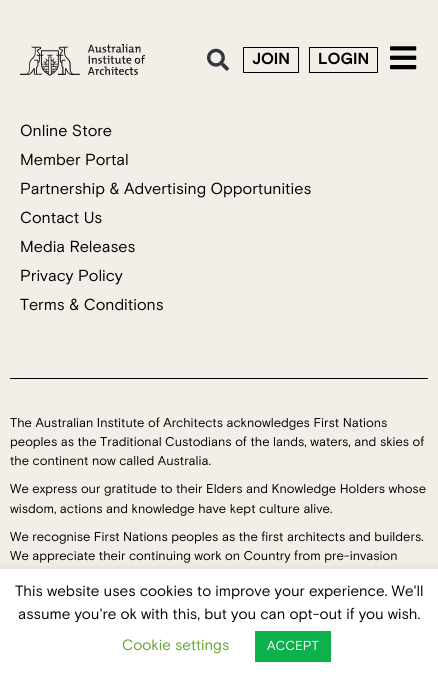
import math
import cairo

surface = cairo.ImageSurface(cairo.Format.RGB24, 438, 679)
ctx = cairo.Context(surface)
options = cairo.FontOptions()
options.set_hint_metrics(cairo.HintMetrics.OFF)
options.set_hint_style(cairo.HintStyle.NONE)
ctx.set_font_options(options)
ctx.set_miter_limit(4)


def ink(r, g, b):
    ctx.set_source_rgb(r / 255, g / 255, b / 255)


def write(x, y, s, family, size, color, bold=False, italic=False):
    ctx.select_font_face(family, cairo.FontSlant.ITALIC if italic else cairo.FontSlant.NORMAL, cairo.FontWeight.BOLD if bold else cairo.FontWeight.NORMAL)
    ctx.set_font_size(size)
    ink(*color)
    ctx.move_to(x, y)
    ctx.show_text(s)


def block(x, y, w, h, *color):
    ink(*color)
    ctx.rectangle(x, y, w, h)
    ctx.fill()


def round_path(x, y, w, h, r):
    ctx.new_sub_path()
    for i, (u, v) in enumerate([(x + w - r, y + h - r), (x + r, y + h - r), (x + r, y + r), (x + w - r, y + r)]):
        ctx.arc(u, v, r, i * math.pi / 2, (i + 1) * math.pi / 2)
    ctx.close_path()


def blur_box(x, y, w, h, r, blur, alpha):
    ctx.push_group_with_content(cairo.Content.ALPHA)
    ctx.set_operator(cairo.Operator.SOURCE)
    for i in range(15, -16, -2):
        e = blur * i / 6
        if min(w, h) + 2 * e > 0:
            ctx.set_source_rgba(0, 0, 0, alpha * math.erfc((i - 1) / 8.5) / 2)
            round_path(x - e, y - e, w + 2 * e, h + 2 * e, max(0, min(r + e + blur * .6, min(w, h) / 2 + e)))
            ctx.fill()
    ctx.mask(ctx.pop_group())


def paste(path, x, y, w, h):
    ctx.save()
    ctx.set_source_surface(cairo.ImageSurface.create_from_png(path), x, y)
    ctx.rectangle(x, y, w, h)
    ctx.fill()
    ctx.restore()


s1 = dict(family="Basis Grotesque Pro", size=16, color=(0, 0, 0), bold=True)
s2 = dict(family="Basis Grotesque Pro", size=16, color=(0, 0, 0))
s3 = dict(family="Basis Grotesque Pro", size=12.8, color=(0, 0, 0))
s4 = dict(family="Basis Grotesque Pro", size=15, color=(0, 0, 0))
s5 = dict(family="Basis Grotesque Pro", size=15, color=(98, 163, 41))
s6 = dict(family="Basis Grotesque Pro", size=13, color=(255, 255, 255))

ink(242, 238, 232)
ctx.paint()
paste("pic1.png", 20, 44, 125, 32)
paste("pic2.png", 207, 48, 22, 23)
ctx.rectangle(243.5, 47.5, 55, 25)
ink(0, 0, 0)
ctx.set_line_width(1)
ctx.stroke()
write(252, 64, "JOIN", **s1)
ctx.rectangle(309.5, 47.5, 68, 25)
ctx.stroke()
write(318, 64, "LOGIN", **s1)
paste("pic3.png", 390, 46, 27, 24)
write(20, 136, "Online Store", **s2)
write(20, 165, "Member Portal", **s2)
write(20, 194, "Partnership & Advertising Opportunities", **s2)
write(20, 223, "Contact Us", **s2)
write(20, 252, "Media Releases", **s2)
write(20, 281, "Privacy Policy", **s2)
write(20, 310, "Terms & Conditions", **s2)
block(10, 378, 418, 1, 0, 0, 0)
write(10, 427, "The Australian Institute of Architects acknowledges First Nations", **s3)
write(10, 446, "peoples as the Traditional Custodians of the lands, waters, and skies of", **s3)
write(10, 465, "the continent now called Australia.", **s3)
write(10, 493, "We express our gratitude to their Elders and Knowledge Holders whose", **s3)
write(10, 513, "wisdom, actions and knowledge have kept culture alive.", **s3)
write(10, 541, "We recognise First Nations peoples as the first architects and builders.", **s3)
write(10, 560, "We appreciate their continuing work on Country from pre-invasion", **s3)
ink(172, 171, 171)
blur_box(0, 568, 438, 110, 0, 5, 0.3)
block(0, 569, 438, 110, 255, 255, 255)
write(15, 596, "This website uses cookies to improve your experience. We'll", **s4)
write(18, 619, "assume you're ok with this, but you can opt-out if you wish.", **s4)
write(122, 650, "Cookie settings", **s5)
block(255, 631, 76, 31, 13, 177, 75)
write(267, 650, "ACCEPT", **s6)
surface.write_to_png("screenshot.png")
